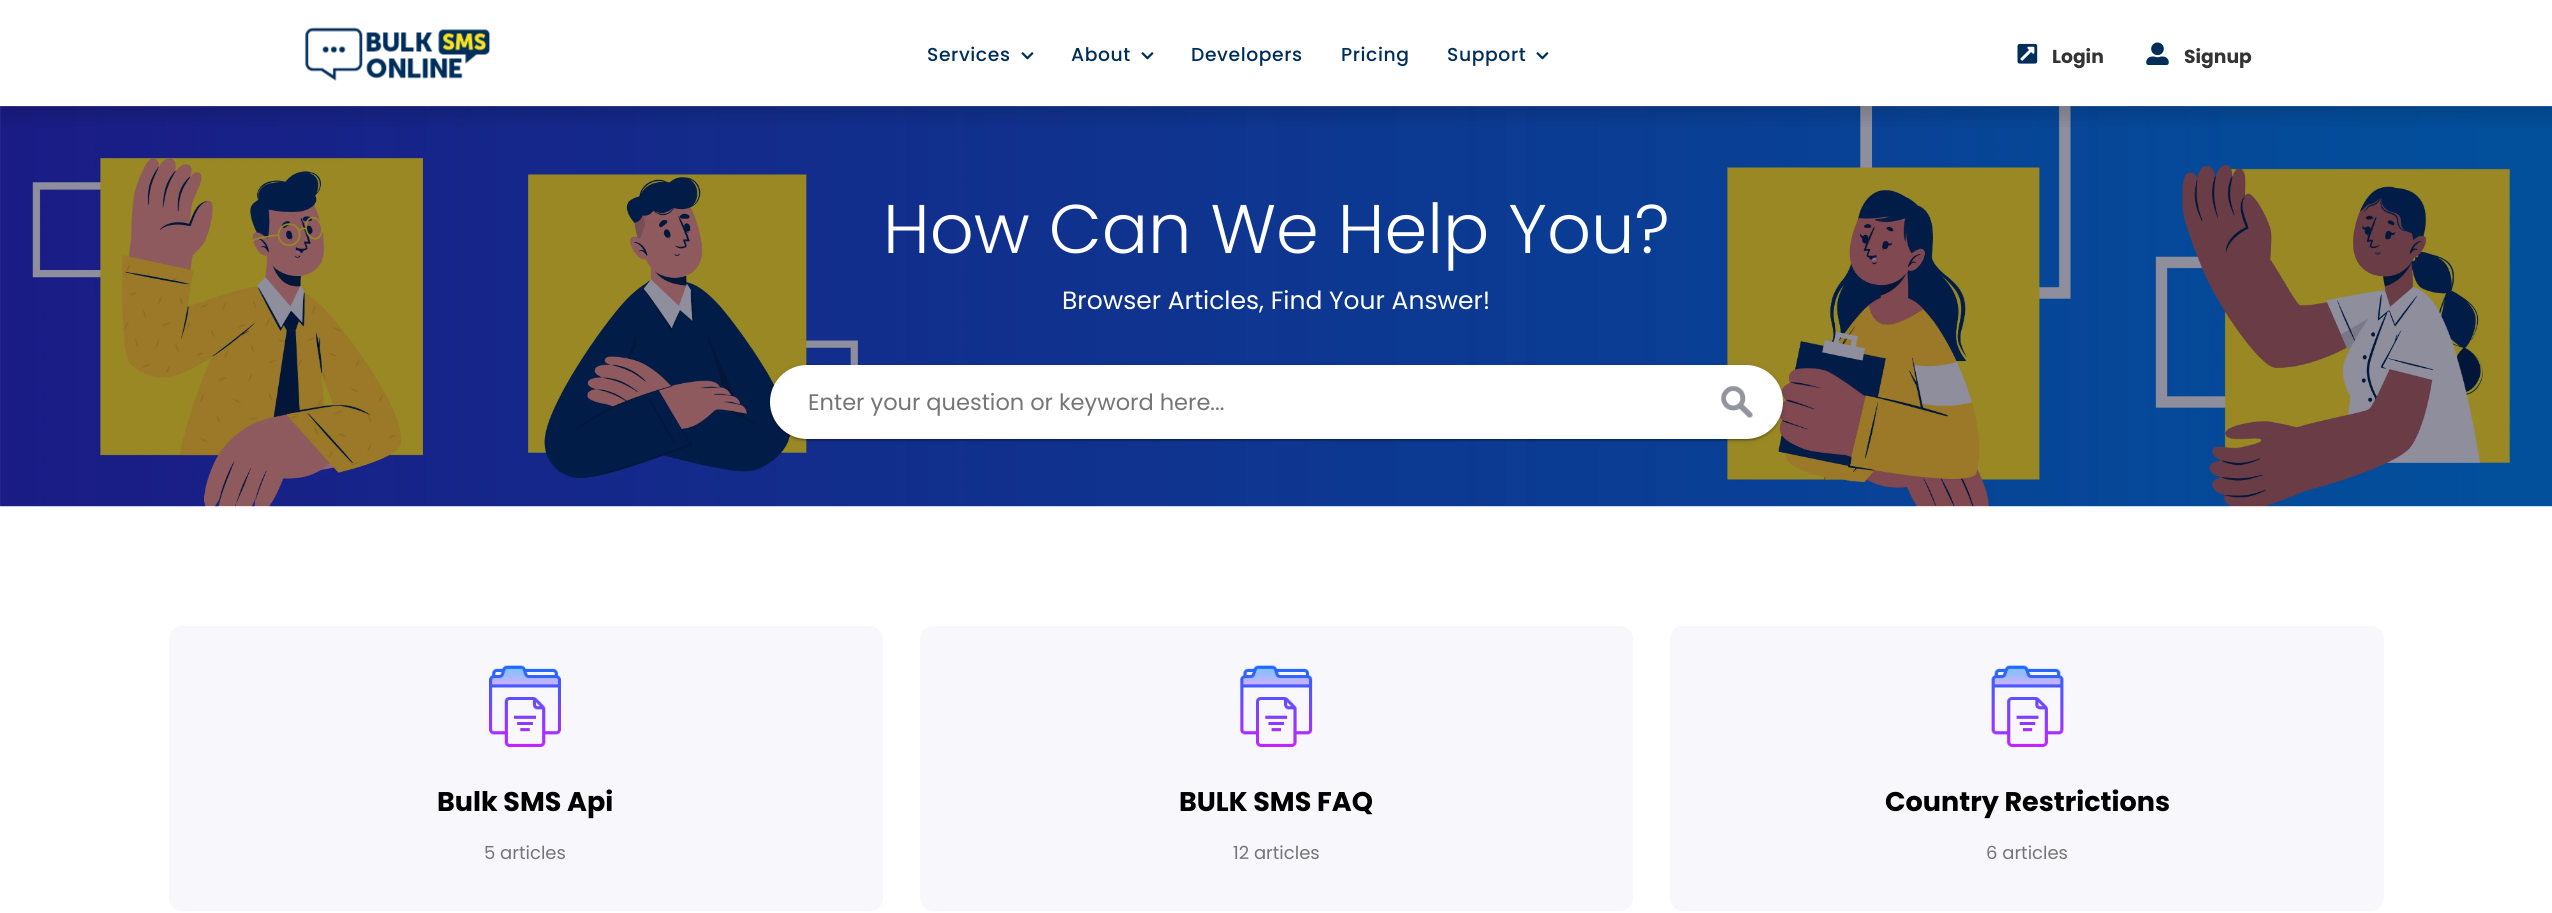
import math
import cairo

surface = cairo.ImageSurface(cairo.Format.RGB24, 2552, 913)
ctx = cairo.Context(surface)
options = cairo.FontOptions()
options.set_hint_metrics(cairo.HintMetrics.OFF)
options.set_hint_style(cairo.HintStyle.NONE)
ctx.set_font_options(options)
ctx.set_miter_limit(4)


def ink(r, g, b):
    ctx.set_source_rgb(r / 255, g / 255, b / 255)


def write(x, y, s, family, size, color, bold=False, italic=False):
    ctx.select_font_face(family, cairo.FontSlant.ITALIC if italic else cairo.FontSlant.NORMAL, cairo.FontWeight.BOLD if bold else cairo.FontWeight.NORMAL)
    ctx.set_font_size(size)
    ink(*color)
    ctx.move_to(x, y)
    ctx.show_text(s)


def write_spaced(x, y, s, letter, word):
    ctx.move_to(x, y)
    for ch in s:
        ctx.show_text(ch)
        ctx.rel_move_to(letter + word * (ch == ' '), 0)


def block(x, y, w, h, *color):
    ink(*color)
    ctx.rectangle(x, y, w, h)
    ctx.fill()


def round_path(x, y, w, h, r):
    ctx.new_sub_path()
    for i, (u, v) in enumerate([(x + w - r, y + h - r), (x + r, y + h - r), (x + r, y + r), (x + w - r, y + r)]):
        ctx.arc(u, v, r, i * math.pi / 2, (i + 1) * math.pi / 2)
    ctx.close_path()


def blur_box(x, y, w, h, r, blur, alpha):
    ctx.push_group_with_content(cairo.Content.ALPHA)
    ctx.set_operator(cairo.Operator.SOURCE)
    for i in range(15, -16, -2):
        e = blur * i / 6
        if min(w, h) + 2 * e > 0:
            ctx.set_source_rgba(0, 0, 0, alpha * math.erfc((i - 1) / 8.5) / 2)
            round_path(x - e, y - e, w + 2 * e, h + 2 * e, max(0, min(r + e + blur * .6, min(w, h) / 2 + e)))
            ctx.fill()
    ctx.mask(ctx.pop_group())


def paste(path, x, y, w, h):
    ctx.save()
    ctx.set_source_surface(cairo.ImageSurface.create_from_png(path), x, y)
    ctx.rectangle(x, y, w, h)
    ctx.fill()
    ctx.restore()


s1 = dict(family="Poppins", size=18.75, color=(51, 51, 51), bold=True)
s2 = dict(family="Poppins Light", size=68.75, color=(255, 255, 255))
s3 = dict(family="Poppins", size=25, color=(255, 255, 255))
s4 = dict(family="Poppins", size=22.5, color=(117, 117, 117))
s5 = dict(family="Poppins", size=27, color=(0, 0, 0), bold=True)
s6 = dict(family="Poppins", size=18, color=(117, 117, 117))

ink(255, 255, 255)
ctx.paint()
block(0, 106, 2552, 400, 155, 154, 169)
paste("pic5.png", 0, 106, 2552, 401)
ctx.save()
ctx.rectangle(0, 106, 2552, 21)
ctx.clip()
ink(0, 0, 0)
blur_box(0, 10, 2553, 106, 0, 10, 0.15)
ctx.restore()
paste("pic1.png", 305, 27, 186, 54)
ctx.select_font_face("Poppins Medium")
ctx.set_font_size(18.75)
ink(0, 46, 91)
write_spaced(927, 61, "Services", 0.6, 0)
paste("pic2.png", 1021, 52, 13, 8)
write_spaced(1071, 61, "About", 0.6, 0)
paste("pic2.png", 1141, 52, 13, 8)
write_spaced(1191, 61, "Developers", 0.6, 0)
write_spaced(1341, 61, "Pricing", 0.6, 0)
write_spaced(1447, 61, "Support", 0.6, 0)
paste("pic2.png", 1536, 52, 13, 8)
paste("pic3.png", 2017, 43, 21, 21)
write(2052, 63, "Login", **s1)
paste("pic4.png", 2146, 42, 23, 23)
write(2184, 63, "Signup", **s1)
write(883, 253, "How Can We Help You?", **s2)
write(1062, 309, "Browser Articles, Find Your Answer!", **s3)
ink(0, 0, 0)
blur_box(770, 366, 1013, 74, 37, 3, 0.12)
blur_box(770, 368, 1013, 73, 36.5, 1, 0.14)
blur_box(773, 371, 1007, 69, 34.5, 0.5, 0.2)
ink(255, 255, 255)
round_path(770, 365, 1013, 74, 37)
ctx.fill()
paste("pic6.png", 1721, 386, 32, 32)
write(808, 410, "Enter your question or keyword here...", **s4)
ink(248, 248, 252)
round_path(169, 626, 714, 285, 13)
ctx.fill()
paste("pic7.png", 489, 665, 72, 82)
write(437, 811, "Bulk SMS Api", **s5)
write(484, 859, "5 articles", **s6)
ink(248, 248, 252)
round_path(920, 626, 713, 285, 13)
ctx.fill()
paste("pic8.png", 1240, 665, 73, 82)
write(1179, 811, "BULK SMS FAQ", **s5)
write(1233, 859, "12 articles", **s6)
ink(248, 248, 252)
round_path(1670, 626, 714, 285, 13)
ctx.fill()
paste("pic9.png", 1991, 665, 73, 82)
write(1885, 811, "Country Restrictions", **s5)
write(1986, 859, "6 articles", **s6)
surface.write_to_png("screenshot.png")
